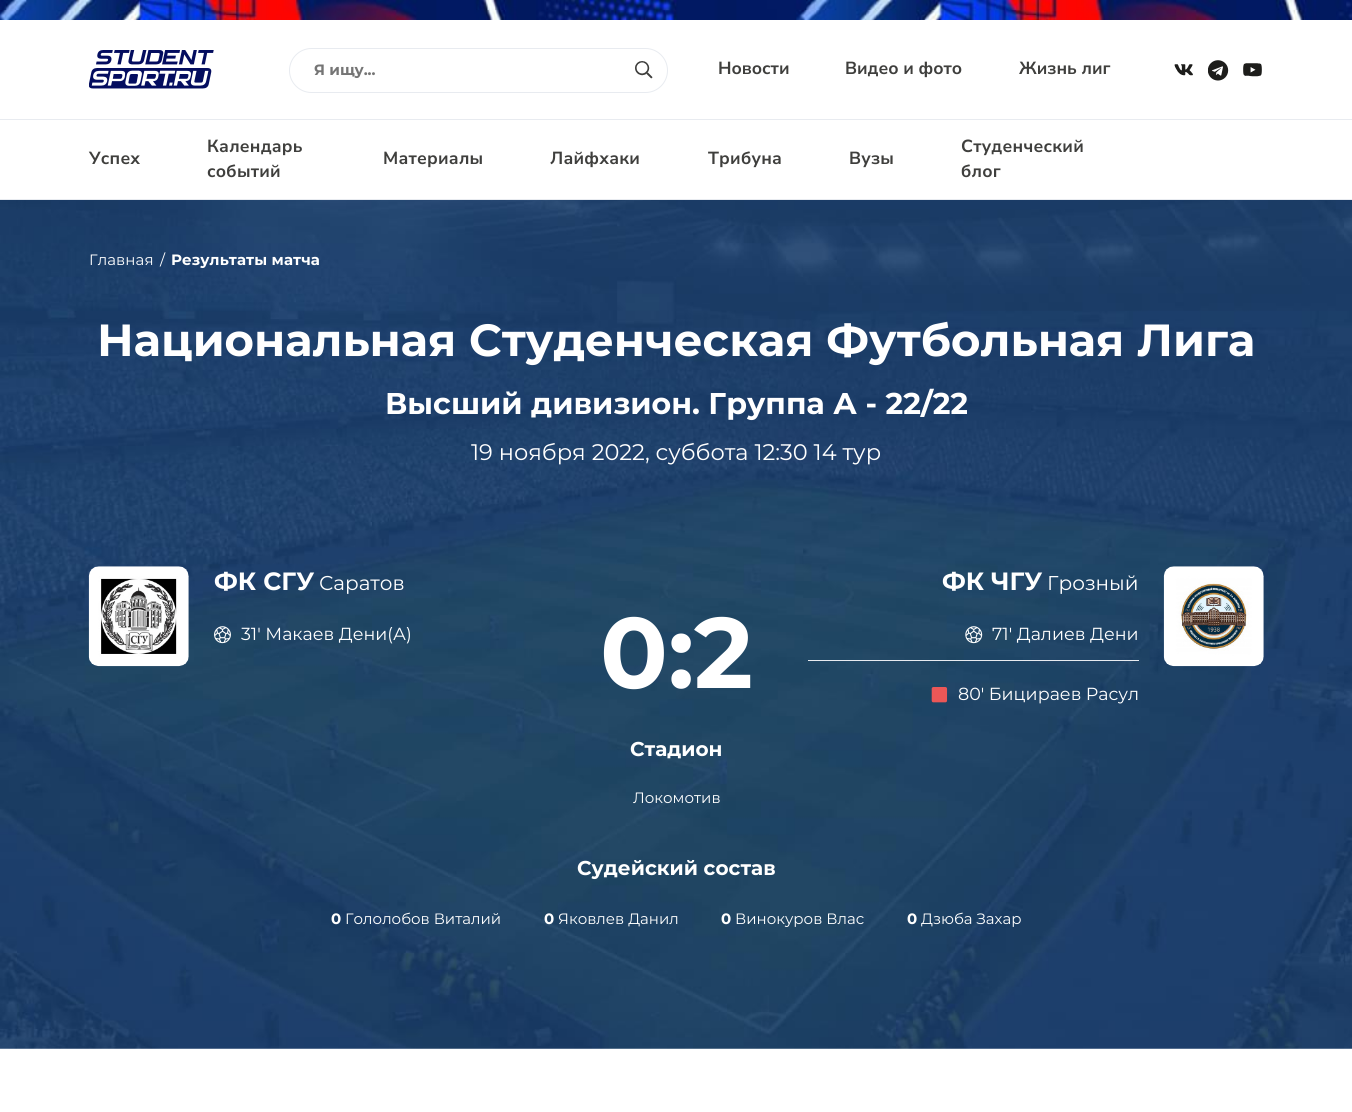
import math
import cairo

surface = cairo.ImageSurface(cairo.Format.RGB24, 1352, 1112)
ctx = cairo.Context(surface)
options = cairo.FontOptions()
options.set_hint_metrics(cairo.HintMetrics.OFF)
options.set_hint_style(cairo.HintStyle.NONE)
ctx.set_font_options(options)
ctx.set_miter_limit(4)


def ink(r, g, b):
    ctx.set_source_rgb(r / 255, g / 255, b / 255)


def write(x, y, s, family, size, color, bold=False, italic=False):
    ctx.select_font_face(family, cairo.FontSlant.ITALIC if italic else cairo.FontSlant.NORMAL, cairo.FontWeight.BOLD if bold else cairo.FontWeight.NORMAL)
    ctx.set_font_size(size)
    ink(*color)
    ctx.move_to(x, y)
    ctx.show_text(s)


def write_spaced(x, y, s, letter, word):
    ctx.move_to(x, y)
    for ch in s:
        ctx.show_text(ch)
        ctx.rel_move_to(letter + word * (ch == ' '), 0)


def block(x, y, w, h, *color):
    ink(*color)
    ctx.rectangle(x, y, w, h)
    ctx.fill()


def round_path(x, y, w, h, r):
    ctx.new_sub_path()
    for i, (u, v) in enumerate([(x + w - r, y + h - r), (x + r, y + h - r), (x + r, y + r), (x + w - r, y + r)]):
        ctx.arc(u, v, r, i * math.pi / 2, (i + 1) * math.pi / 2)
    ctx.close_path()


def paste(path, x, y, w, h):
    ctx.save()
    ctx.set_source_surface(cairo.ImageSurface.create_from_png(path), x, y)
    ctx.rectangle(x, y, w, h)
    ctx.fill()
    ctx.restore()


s1 = dict(family="Montserrat", size=15, color=(117, 117, 117), bold=True)
s2 = dict(family="Nunito Sans", size=17.5, color=(63, 63, 61), bold=True)
s3 = dict(family="Montserrat", size=45, color=(255, 255, 255), bold=True)
s4 = dict(family="Montserrat", size=30, color=(255, 255, 255), bold=True)
s5 = dict(family="Montserrat", size=22.5, color=(255, 255, 255))
s6 = dict(family="Montserrat", size=25, color=(255, 255, 255), bold=True)
s7 = dict(family="Montserrat", size=20, color=(255, 255, 255))
s8 = dict(family="Montserrat", size=17.5, color=(255, 255, 255))
s9 = dict(family="Montserrat", size=100, color=(255, 255, 255), bold=True)
s10 = dict(family="Montserrat", size=20, color=(255, 255, 255), bold=True)
s11 = dict(family="Montserrat", size=15, color=(255, 255, 255))
s12 = dict(family="Montserrat", size=15, color=(255, 255, 255), bold=True)

ink(255, 255, 255)
ctx.paint()
paste("pic1.png", 0, 0, 1352, 20)
block(0, 119, 1352, 1, 232, 235, 240)
paste("pic2.png", 89, 50, 125, 39)
paste("pic3.png", 635, 61, 18, 18)
round_path(289.5, 48.5, 378, 44, 22)
ctx.set_line_width(1)
ctx.stroke()
write(314, 75, "Я ищу...", **s1)
write(718, 74, "Новости", **s2)
write(845, 74, "Видео и фото", **s2)
write(1019, 74, "Жизнь лиг", **s2)
paste("pic4.png", 1174, 64, 19, 12)
paste("pic5.png", 1208, 60, 21, 21)
paste("pic6.png", 1243, 63, 19, 14)
block(0, 199, 1352, 1, 232, 235, 240)
ink(63, 63, 61)
write_spaced(89, 164, "Успех", 0.25, 0)
write_spaced(207, 152, "Календарь", 0.25, 0)
write_spaced(207, 177, "событий", 0.25, 0)
write_spaced(383, 164, "Материалы", 0.25, 0)
write_spaced(550, 164, "Лайфхаки", 0.25, 0)
write_spaced(708, 164, "Трибуна", 0.25, 0)
write_spaced(849, 164, "Вузы", 0.25, 0)
write_spaced(961, 152, "Студенческий", 0.25, 0)
write_spaced(961, 177, "блог", 0.25, 0)
paste("pic7.png", 0, 200, 1352, 849)
ctx.select_font_face("Montserrat")
ctx.set_font_size(15)
ink(255, 255, 255)
write_spaced(89, 265, "Главная", 0.1, 0)
write_spaced(160, 265, "/", 0.1, 0)
ctx.select_font_face("Montserrat", cairo.FontSlant.NORMAL, cairo.FontWeight.BOLD)
write_spaced(171, 265, "Результаты матча", 0.1, 0)
write(97, 356, "Национальная Студенческая Футбольная Лига", **s3)
write(385, 414, "Высший дивизион. Группа А - 22/22", **s4)
write(471, 460, "19 ноября 2022, суббота 12:30 14 тур", **s5)
paste("pic8.png", 88, 566, 101, 101)
write(214, 590, "ФК СГУ", **s6)
write(319, 590, "Саратов", **s7)
paste("pic9.png", 214, 626, 17, 18)
write(241, 640, "31' Макаев Дени(А)", **s8)
write(600, 688, "0:2", **s9)
write(942, 590, "ФК ЧГУ", **s6)
write(1047, 590, "Грозный", **s7)
paste("pic10.png", 965, 626, 18, 18)
write(992, 640, "71' Далиев Дени", **s8)
block(808, 660, 331, 1, 232, 235, 240)
paste("pic11.png", 931, 687, 17, 16)
write(958, 700, "80' Бицираев Расул", **s8)
paste("pic12.png", 1163, 566, 101, 101)
write(630, 756, "Стадион", **s10)
write(633, 803, "Локомотив", **s11)
write(577, 875, "Судейский состав", **s10)
write(331, 924, "0", **s12)
write(345, 924, "Гололобов Виталий", **s11)
write(544, 924, "0", **s12)
write(558, 924, "Яковлев Данил", **s11)
write(721, 924, "0", **s12)
write(735, 924, "Винокуров Влас", **s11)
write(907, 924, "0", **s12)
write(921, 924, "Дзюба Захар", **s11)
surface.write_to_png("screenshot.png")
